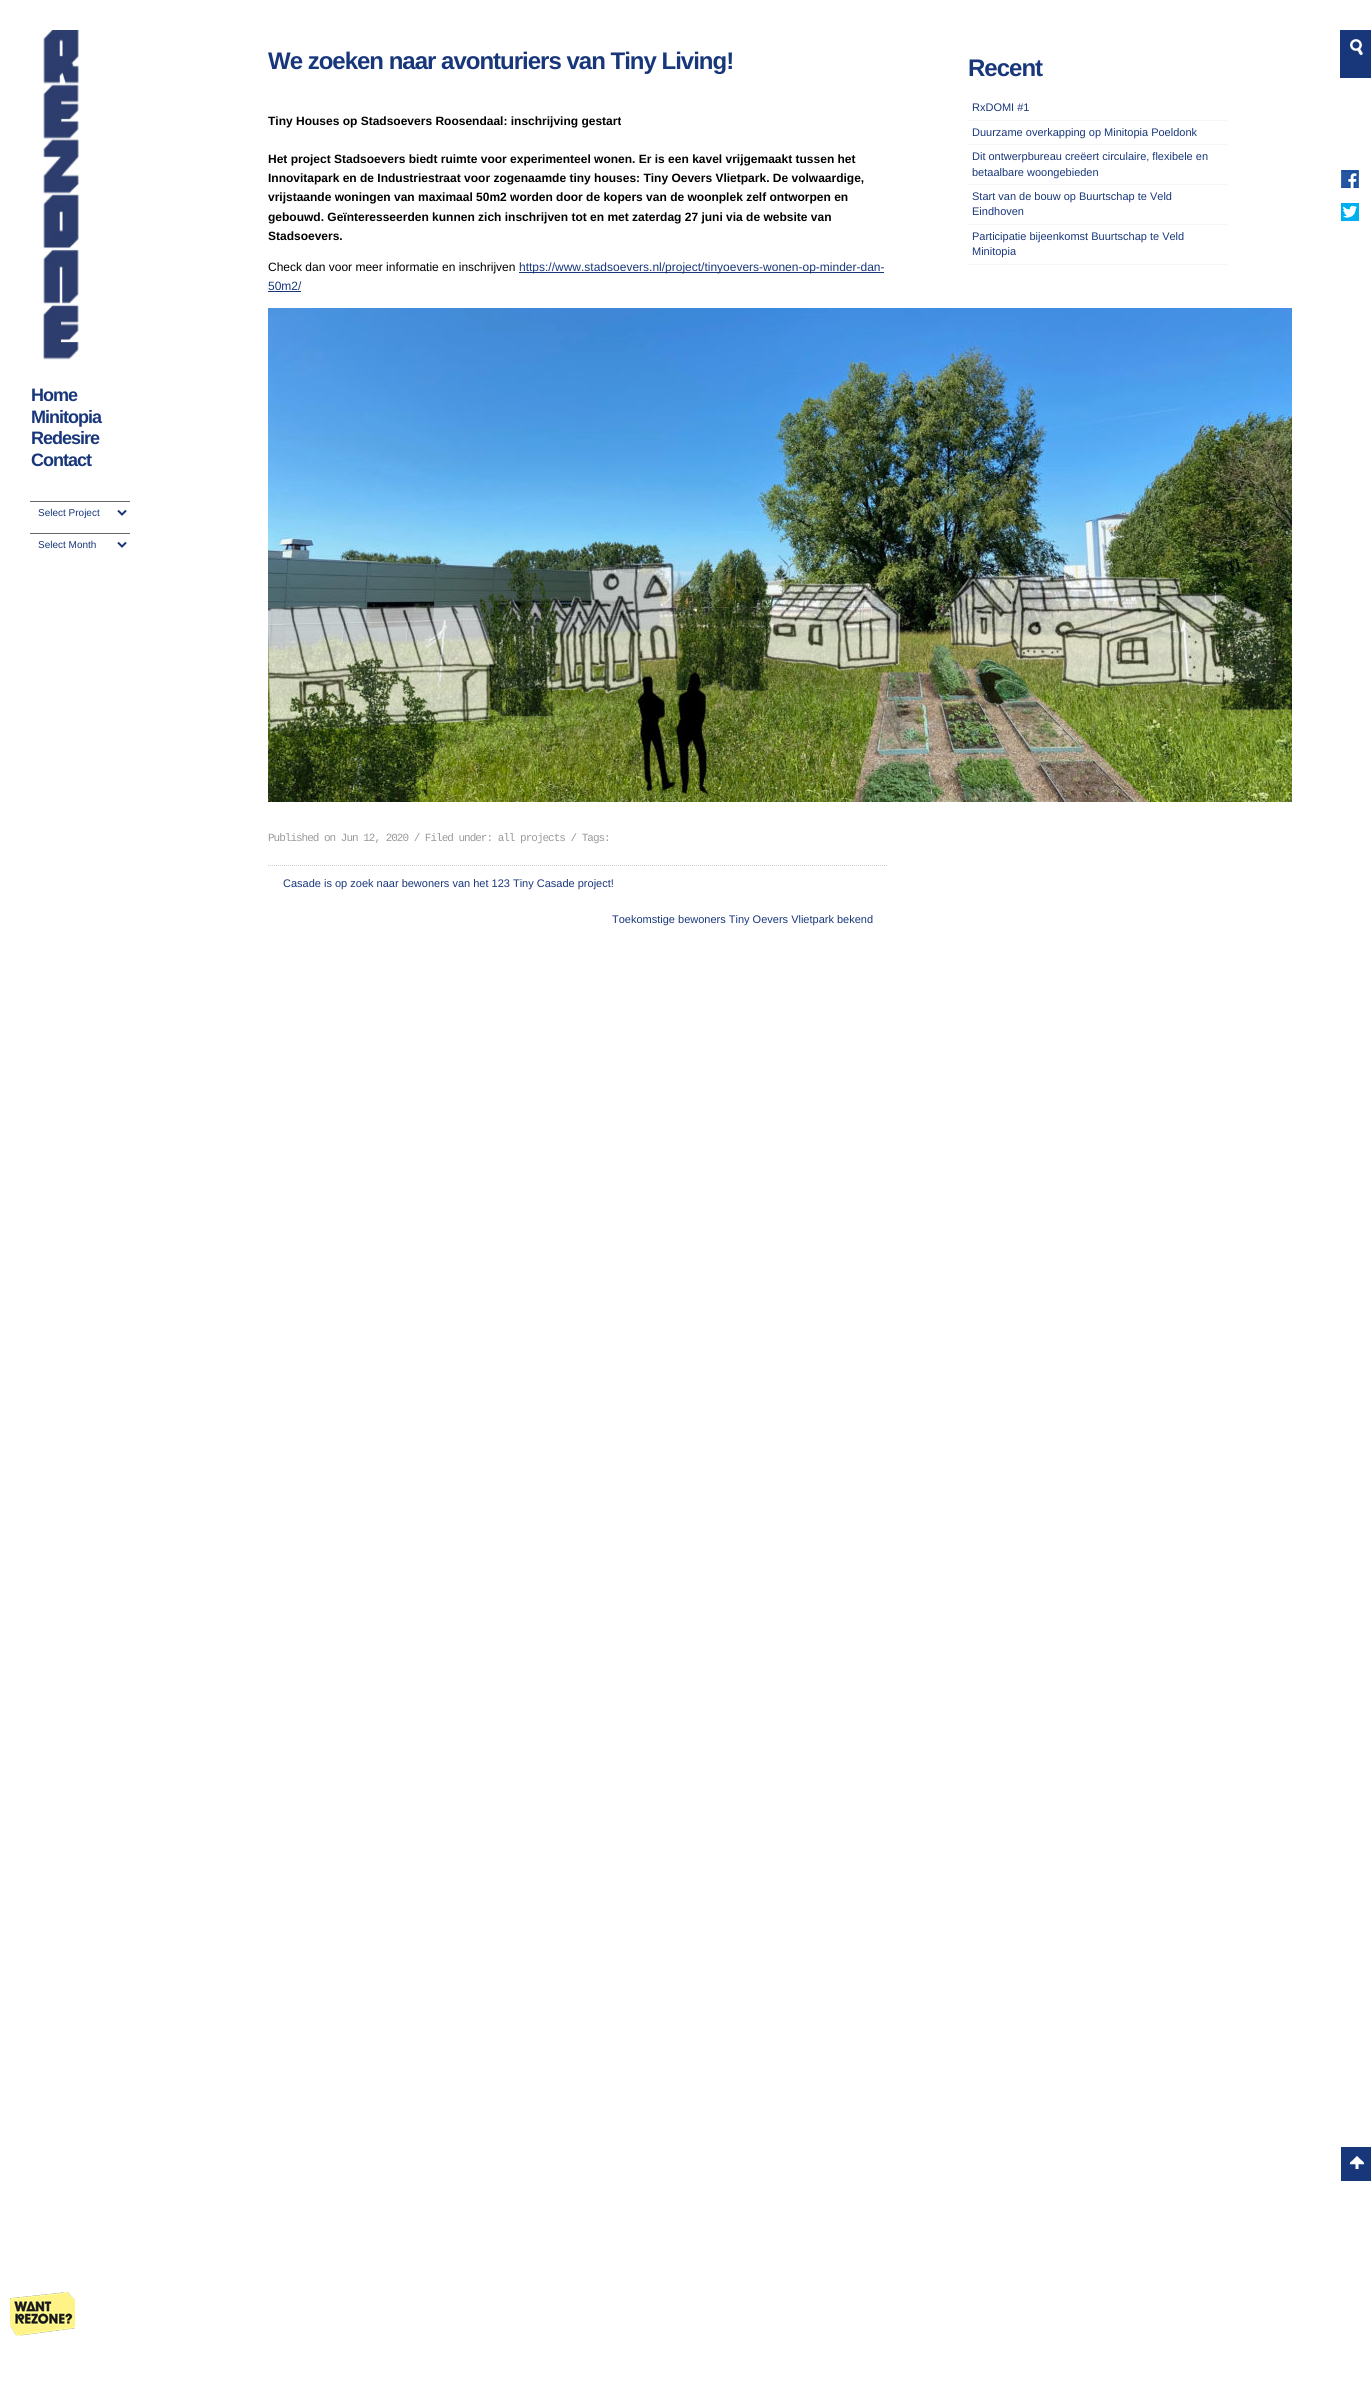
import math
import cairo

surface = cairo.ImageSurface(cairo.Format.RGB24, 1371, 2386)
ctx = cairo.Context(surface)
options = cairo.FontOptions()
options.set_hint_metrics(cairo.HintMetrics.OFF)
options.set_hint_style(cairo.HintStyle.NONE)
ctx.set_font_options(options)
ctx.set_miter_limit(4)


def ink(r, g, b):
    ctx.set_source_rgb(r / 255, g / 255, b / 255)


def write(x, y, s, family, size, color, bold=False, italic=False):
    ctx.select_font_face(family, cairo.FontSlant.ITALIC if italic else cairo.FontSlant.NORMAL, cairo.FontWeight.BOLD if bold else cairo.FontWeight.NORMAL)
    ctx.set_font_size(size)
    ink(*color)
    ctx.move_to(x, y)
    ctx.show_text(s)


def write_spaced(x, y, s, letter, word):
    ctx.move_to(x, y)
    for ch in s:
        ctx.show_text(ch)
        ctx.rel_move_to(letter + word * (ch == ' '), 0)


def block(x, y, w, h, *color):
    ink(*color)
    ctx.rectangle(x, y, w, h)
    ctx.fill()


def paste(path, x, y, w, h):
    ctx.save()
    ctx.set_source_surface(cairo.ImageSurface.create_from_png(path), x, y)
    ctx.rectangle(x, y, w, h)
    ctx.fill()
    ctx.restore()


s1 = dict(family="Liberation Sans", size=12, color=(0, 0, 0), bold=True)
s2 = dict(family="Liberation Sans", size=12, color=(0, 0, 0))
s3 = dict(family="Liberation Sans", size=12, color=(24, 55, 122))
s4 = dict(family="Liberation Sans", size=11, color=(24, 55, 122))
s5 = dict(family="Liberation Sans", size=10, color=(24, 55, 122))

ink(255, 255, 255)
ctx.paint()
ctx.select_font_face("Liberation Sans", cairo.FontSlant.NORMAL, cairo.FontWeight.BOLD)
ctx.set_font_size(24)
ink(24, 55, 122)
write_spaced(268, 69, "We zoeken naar avonturiers van Tiny Living!", -1, 0)
write(268, 125, "Tiny Houses op Stadsoevers Roosendaal: inschrijving gestart", **s1)
write(268, 163, "Het project Stadsoevers biedt ruimte voor experimenteel wonen. Er is een kavel vrijgemaakt tussen het", **s1)
write(268, 182, "Innovitapark en de Industriestraat voor zogenaamde tiny houses: Tiny Oevers Vlietpark. De volwaardige,", **s1)
write(268, 201, "vrijstaande woningen van maximaal 50m2 worden door de kopers van de woonplek zelf ontworpen en", **s1)
write(268, 221, "gebouwd. Geïnteresseerden kunnen zich inschrijven tot en met zaterdag 27 juni via de website van", **s1)
write(268, 240, "Stadsoevers.", **s1)
write(268, 271, "Check dan voor meer informatie en inschrijven", **s2)
block(519, 272, 365, 1, 24, 55, 122)
write(519, 271, "https://www.stadsoevers.nl/project/tinyoevers-wonen-op-minder-dan-", **s3)
write(268, 290, "50m2/", **s3)
block(268, 291, 33, 1, 24, 55, 122)
paste("pic1.png", 268, 308, 1024, 494)
ctx.select_font_face("Liberation Mono")
ctx.set_font_size(11)
ink(153, 153, 153)
write_spaced(268, 841, "Published on Jun 12, 2020 / Filed under: all projects / Tags:", -1, 0)
ctx.new_path()
ctx.move_to(268, 865.5)
ctx.line_to(888, 865.5)
ink(204, 204, 204)
ctx.set_line_width(1)
ctx.set_dash([1, 1])
ctx.stroke()
write(283, 887, "Casade is op zoek naar bewoners van het 123 Tiny Casade project!", **s4)
write(612, 923, "Toekomstige bewoners Tiny Oevers Vlietpark bekend", **s4)
ctx.select_font_face("Liberation Sans", cairo.FontSlant.NORMAL, cairo.FontWeight.BOLD)
ctx.set_font_size(24)
write_spaced(968, 76, "Recent", -1, 0)
ctx.new_path()
ctx.move_to(968, 120.5)
ctx.line_to(1228, 120.5)
ink(238, 238, 238)
ctx.stroke()
write(972, 111, "RxDOMI #1", **s4)
ctx.new_path()
ctx.move_to(968, 144.5)
ctx.line_to(1228, 144.5)
ink(238, 238, 238)
ctx.stroke()
write(972, 136, "Duurzame overkapping op Minitopia Poeldonk", **s4)
ctx.new_path()
ctx.move_to(968, 184.5)
ctx.line_to(1228, 184.5)
ink(238, 238, 238)
ctx.stroke()
write(972, 160, "Dit ontwerpbureau creëert circulaire, flexibele en", **s4)
write(972, 176, "betaalbare woongebieden", **s4)
ctx.new_path()
ctx.move_to(968, 224.5)
ctx.line_to(1228, 224.5)
ink(238, 238, 238)
ctx.stroke()
write(972, 200, "Start van de bouw op Buurtschap te Veld", **s4)
write(972, 215, "Eindhoven", **s4)
ctx.new_path()
ctx.move_to(968, 264.5)
ctx.line_to(1228, 264.5)
ink(238, 238, 238)
ctx.stroke()
write(972, 240, "Participatie bijeenkomst Buurtschap te Veld", **s4)
write(972, 255, "Minitopia", **s4)
block(1340, 30, 31, 48, 24, 55, 122)
paste("pic2.png", 1350, 39, 13, 16)
paste("pic3.png", 1341, 170, 18, 18)
paste("pic4.png", 1341, 203, 18, 18)
paste("pic5.png", 43, 30, 36, 330)
ctx.select_font_face("Liberation Sans", cairo.FontSlant.NORMAL, cairo.FontWeight.BOLD)
ctx.set_font_size(18)
write_spaced(31, 401, "Home", -1, 0)
write_spaced(31, 423, "Minitopia", -1, 0)
write_spaced(31, 444, "Redesire", -1, 0)
write_spaced(31, 466, "Contact", -1, 0)
block(30, 501, 100, 1, 102, 102, 102)
ctx.new_path()
ctx.move_to(118, 510.5)
ctx.line_to(122, 514.5)
ctx.line_to(126, 510.5)
ink(24, 55, 122)
ctx.set_line_width(2)
ctx.set_dash([])
ctx.stroke()
write(38, 516, "Select Project", **s5)
block(30, 533, 100, 1, 102, 102, 102)
ctx.new_path()
ctx.move_to(118, 542.5)
ctx.line_to(122, 546.5)
ctx.line_to(126, 542.5)
ink(24, 55, 122)
ctx.stroke()
write(38, 548, "Select Month", **s5)
block(1341, 2147, 30, 34, 24, 55, 122)
paste("pic6.png", 1350, 2156, 14, 13)
paste("pic7.png", 10, 2292, 65, 44)
surface.write_to_png("screenshot.png")
